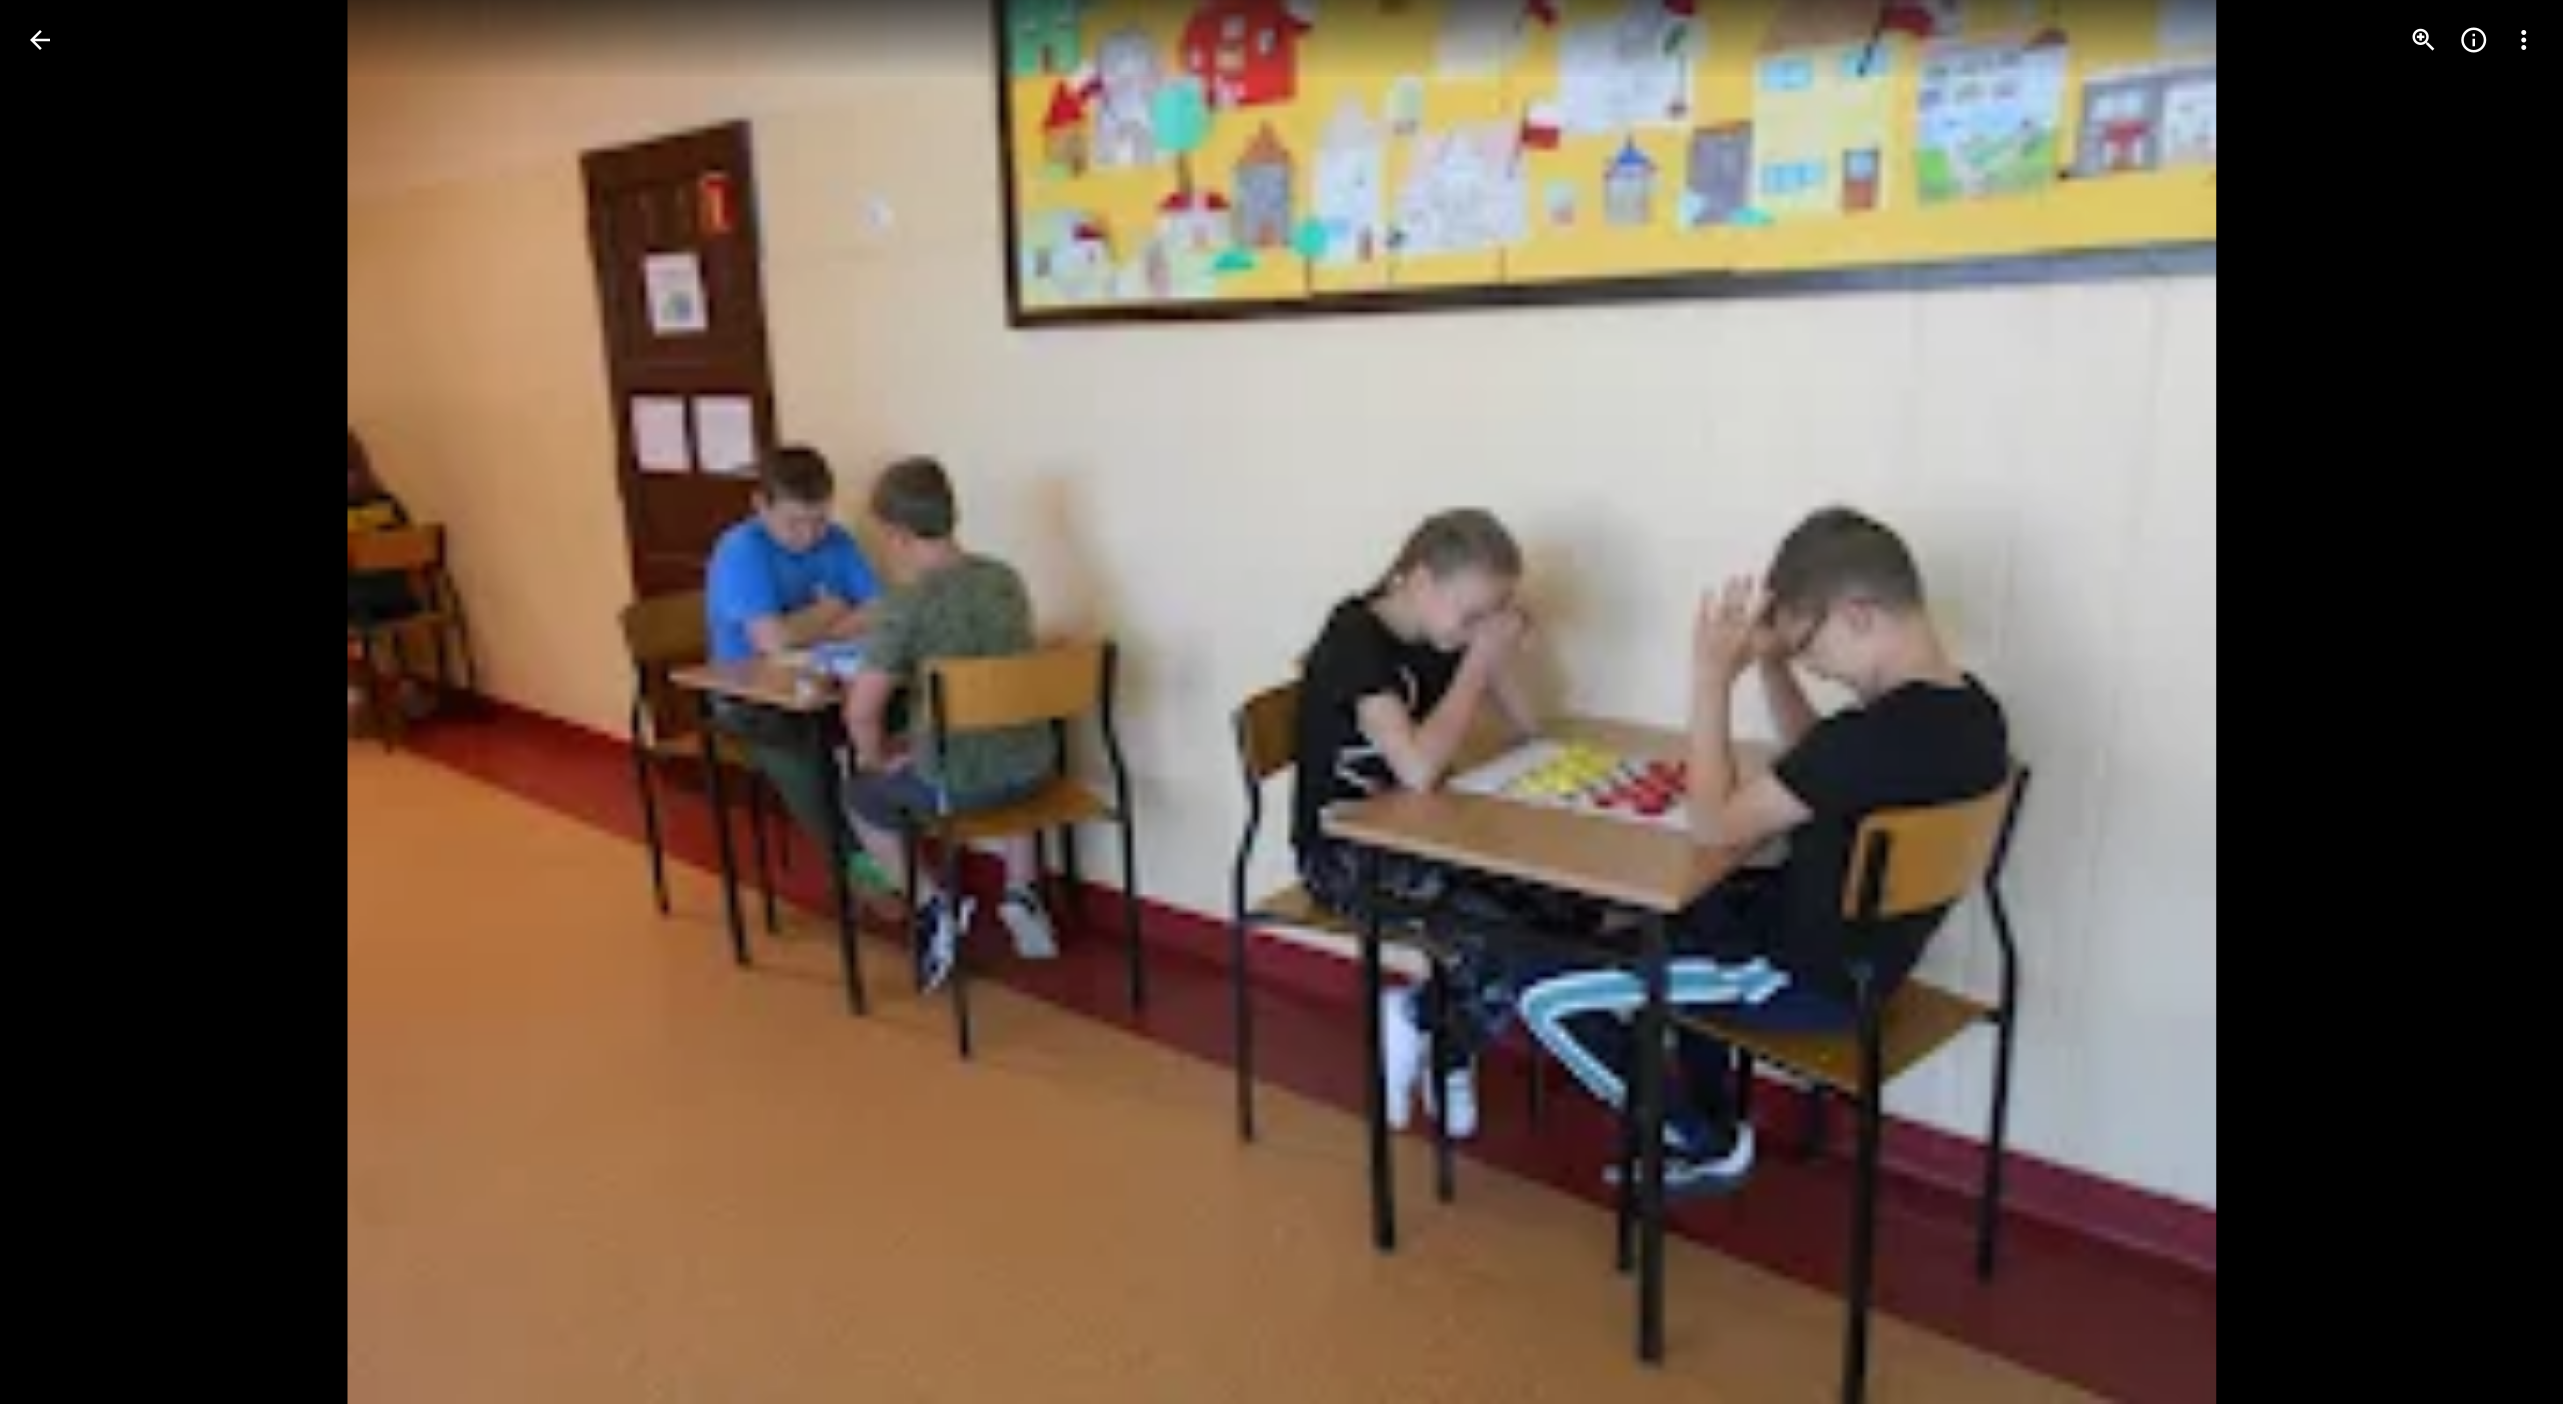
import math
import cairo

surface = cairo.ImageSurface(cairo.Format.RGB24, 2563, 1404)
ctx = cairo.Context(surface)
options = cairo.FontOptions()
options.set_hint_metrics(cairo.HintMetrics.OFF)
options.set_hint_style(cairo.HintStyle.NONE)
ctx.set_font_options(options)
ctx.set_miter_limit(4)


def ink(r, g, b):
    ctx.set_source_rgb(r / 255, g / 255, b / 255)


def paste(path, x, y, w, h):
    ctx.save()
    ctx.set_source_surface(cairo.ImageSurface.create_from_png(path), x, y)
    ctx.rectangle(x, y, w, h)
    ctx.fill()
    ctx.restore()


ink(0, 0, 0)
ctx.paint()
paste("pic5.png", 347, 0, 1870, 1404)
gradient = cairo.LinearGradient(1282, 0, 1282, 80)
gradient.add_color_stop_rgba(0, 0, 0, 0, 0.6)
gradient.add_color_stop_rgba(1, 0, 0, 0, 0)
ctx.set_source(gradient)
ctx.rectangle(347, 0, 1870, 77)
ctx.fill()
paste("pic1.png", 30, 30, 20, 20)
paste("pic2.png", 2412, 28, 23, 23)
paste("pic3.png", 2461, 27, 26, 26)
paste("pic4.png", 2521, 30, 6, 20)
surface.write_to_png("screenshot.png")
